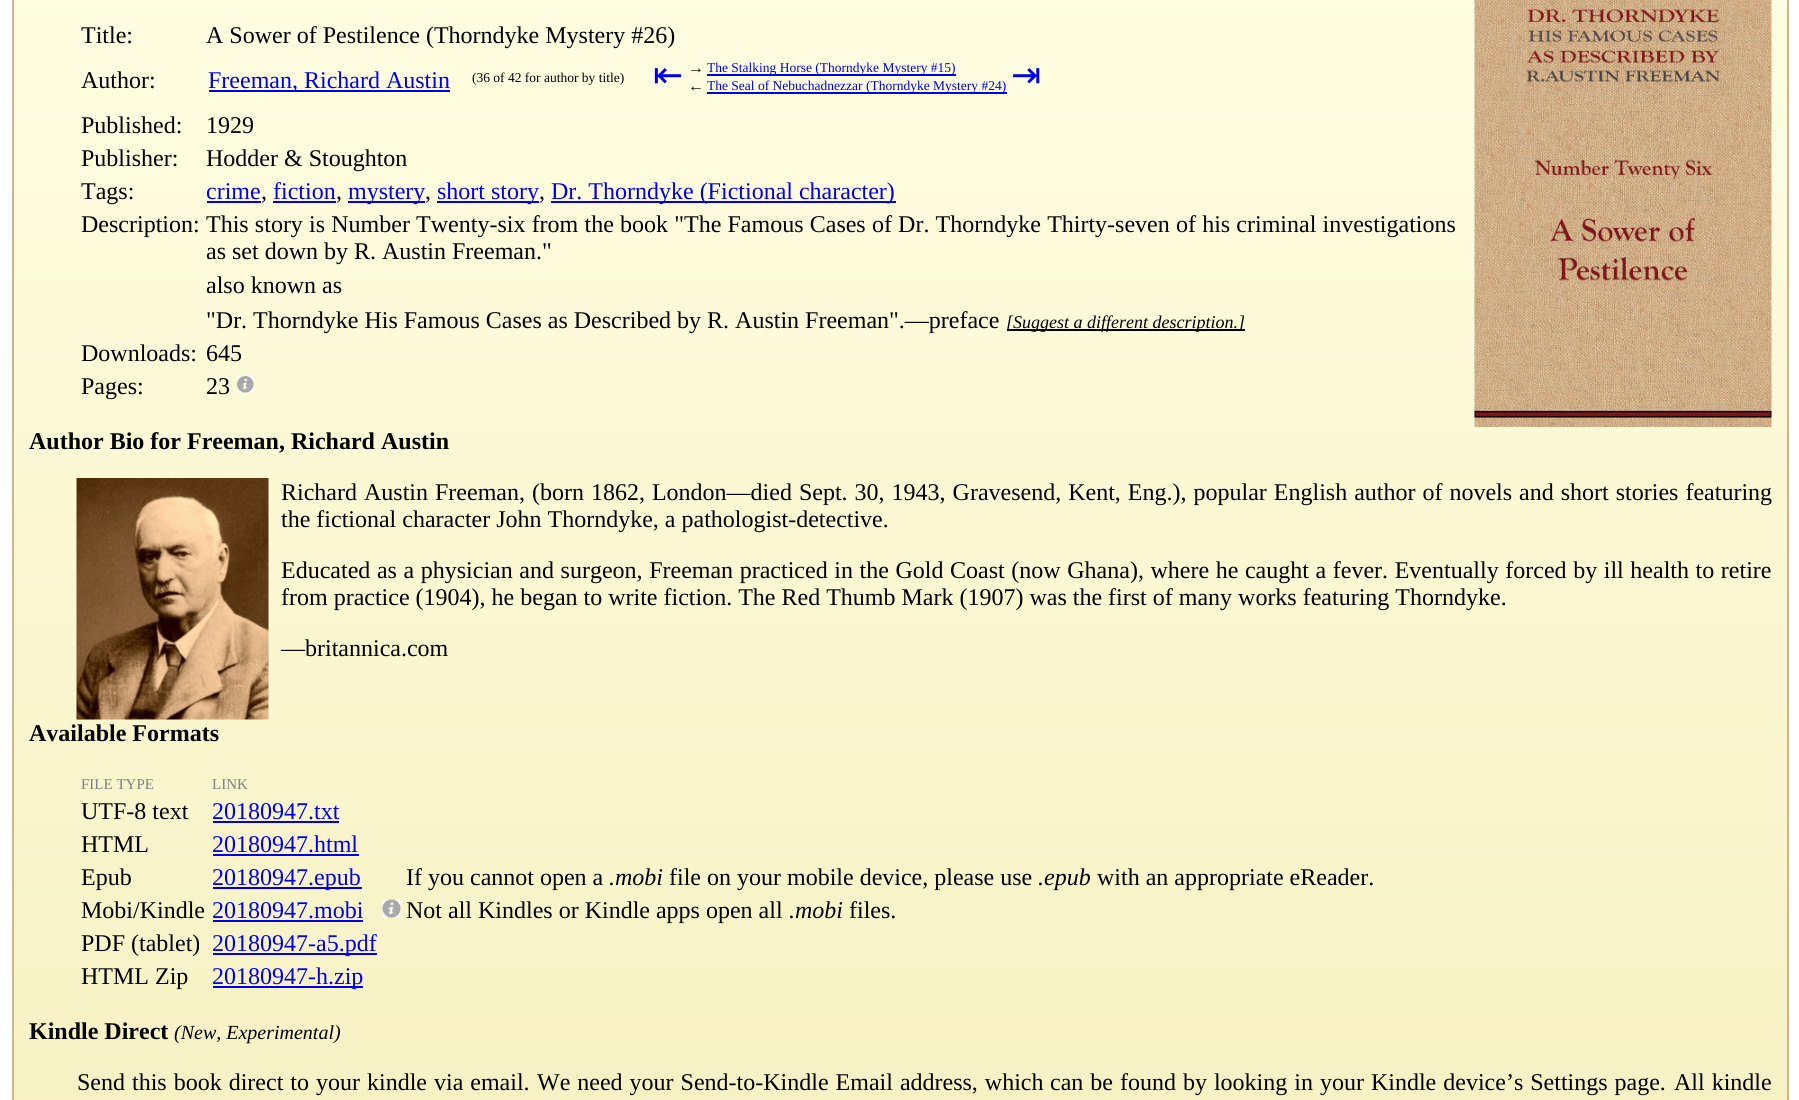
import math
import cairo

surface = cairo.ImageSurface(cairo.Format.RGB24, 1799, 1100)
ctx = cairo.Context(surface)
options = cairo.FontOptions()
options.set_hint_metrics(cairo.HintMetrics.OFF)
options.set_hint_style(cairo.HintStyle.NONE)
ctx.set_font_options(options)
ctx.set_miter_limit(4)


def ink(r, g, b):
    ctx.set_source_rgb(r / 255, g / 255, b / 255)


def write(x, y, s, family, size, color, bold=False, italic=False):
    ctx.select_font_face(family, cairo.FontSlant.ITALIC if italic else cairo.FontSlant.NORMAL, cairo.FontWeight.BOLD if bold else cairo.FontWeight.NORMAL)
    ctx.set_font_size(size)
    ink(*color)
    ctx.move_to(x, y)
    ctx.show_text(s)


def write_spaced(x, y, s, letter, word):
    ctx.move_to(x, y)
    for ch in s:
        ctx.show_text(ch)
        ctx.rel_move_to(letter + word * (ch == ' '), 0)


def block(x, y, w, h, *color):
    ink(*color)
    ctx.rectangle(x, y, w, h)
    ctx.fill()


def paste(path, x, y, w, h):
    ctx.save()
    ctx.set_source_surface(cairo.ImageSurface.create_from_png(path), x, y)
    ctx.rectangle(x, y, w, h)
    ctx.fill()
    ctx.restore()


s1 = dict(family="Liberation Serif", size=24, color=(0, 0, 0))
s2 = dict(family="Liberation Serif", size=24, color=(0, 0, 238))
s3 = dict(family="Liberation Serif", size=13.5, color=(0, 0, 0))
s4 = dict(family="DejaVu Sans", size=36, color=(0, 0, 238))
s5 = dict(family="Liberation Serif", size=16, color=(0, 0, 0))
s6 = dict(family="Liberation Serif", size=13.5, color=(0, 0, 238))
s7 = dict(family="Liberation Serif", size=18, color=(0, 0, 0), italic=True)
s8 = dict(family="Liberation Serif", size=24, color=(0, 0, 0), bold=True)
s9 = dict(family="Liberation Serif", size=15, color=(128, 128, 128))
s10 = dict(family="Liberation Serif", size=24, color=(0, 0, 0), italic=True)
s11 = dict(family="Liberation Serif", size=20, color=(0, 0, 0), italic=True)

ink(255, 255, 255)
ctx.paint()
gradient = cairo.LinearGradient(900, -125, 900, 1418)
gradient.add_color_stop_rgba(0, 1, 1, 0.894, 1)
gradient.add_color_stop_rgba(1, 0.961, 0.933, 0.737, 1)
ctx.set_source(gradient)
ctx.rectangle(14, 0, 1773, 1100)
ctx.fill()
block(1787, 0, 2, 1100, 210, 180, 140)
block(12, 0, 2, 1100, 210, 180, 140)
write(81, 43, "Title:", **s1)
write(206, 43, "A Sower of Pestilence (Thorndyke Mystery #26)", **s1)
write(81, 88, "Author:", **s1)
block(209, 90, 241, 2, 0, 0, 238)
write(208, 88, "Freeman, Richard Austin", **s2)
write(472, 82, "(36 of 42 for author by title)", **s3)
write(653, 87, "⇤", **s4)
write(688, 73, "→", **s5)
block(707, 74, 249, 2, 0, 0, 238)
write(707, 72, "The Stalking Horse (Thorndyke Mystery #15)", **s6)
write(688, 91, "←", **s5)
block(707, 92, 300, 2, 0, 0, 238)
write(707, 90, "The Seal of Nebuchadnezzar (Thorndyke Mystery #24)", **s6)
write(1011, 87, "⇥", **s4)
write(81, 133, "Published:", **s1)
write(206, 133, "1929", **s1)
write(81, 166, "Publisher:", **s1)
write(206, 166, "Hodder & Stoughton", **s1)
write(81, 199, "Tags:", **s1)
write(206, 199, "crime", **s2)
block(207, 201, 54, 2, 0, 0, 238)
write(261, 199, ",", **s1)
write(273, 199, "fiction", **s2)
block(273, 201, 63, 2, 0, 0, 238)
write(336, 199, ",", **s1)
block(348, 201, 77, 2, 0, 0, 238)
write(348, 199, "mystery", **s2)
write(425, 199, ",", **s1)
block(437, 201, 102, 2, 0, 0, 238)
write(437, 199, "short story", **s2)
write(539, 199, ",", **s1)
block(551, 201, 345, 2, 0, 0, 238)
write(551, 199, "Dr. Thorndyke (Fictional character)", **s2)
write(81, 232, "Description:", **s1)
write_spaced(206, 232, "This story is Number Twenty-six from the book \"The Famous Cases of Dr. Thorndyke Thirty-seven of his criminal investigations", 0, 0.2)
write(206, 259, "as set down by R. Austin Freeman.\"", **s1)
write(206, 293, "also known as", **s1)
write(206, 328, "\"Dr. Thorndyke His Famous Cases as Described by R. Austin Freeman\".—preface", **s1)
block(1007, 329, 238, 2, 0, 0, 0)
write(1006, 328, "[Suggest a different description.]", **s7)
write(81, 361, "Downloads:", **s1)
write(206, 361, "645", **s1)
write(81, 394, "Pages:", **s1)
write(206, 394, "23", **s1)
paste("pic1.png", 237, 376, 17, 17)
paste("pic2.png", 1474, 0, 298, 427)
write(29, 449, "Author Bio for Freeman, Richard Austin", **s8)
paste("pic3.png", 76, 478, 193, 242)
ctx.select_font_face("Liberation Serif")
write_spaced(281, 500, "Richard Austin Freeman, (born 1862, London—died Sept. 30, 1943, Gravesend, Kent, Eng.), popular English author of novels and short stories featuring", 0, 1)
write(281, 527, "the fictional character John Thorndyke, a pathologist-detective.", **s1)
write_spaced(281, 578, "Educated as a physician and surgeon, Freeman practiced in the Gold Coast (now Ghana), where he caught a fever. Eventually forced by ill health to retire", 0, 0.6)
write(281, 605, "from practice (1904), he began to write fiction. The Red Thumb Mark (1907) was the first of many works featuring Thorndyke.", **s1)
write(281, 656, "—britannica.com", **s1)
write(29, 741, "Available Formats", **s8)
write(81, 789, "FILE TYPE", **s9)
write(212, 789, "LINK", **s9)
write(81, 819, "UTF-8 text", **s1)
write(212, 819, "20180947.txt", **s2)
block(213, 821, 126, 2, 0, 0, 238)
write(81, 852, "HTML", **s1)
write(212, 852, "20180947.html", **s2)
block(213, 854, 146, 2, 0, 0, 238)
write(81, 885, "Epub", **s1)
block(213, 887, 149, 2, 0, 0, 238)
write(212, 885, "20180947.epub", **s2)
write(406, 885, "If you cannot open a", **s1)
write(609, 885, ".mobi", **s10)
write(669, 885, "file on your mobile device, please use", **s1)
write(1038, 885, ".epub", **s10)
write(1097, 885, "with an appropriate eReader.", **s1)
write(81, 918, "Mobi/Kindle", **s1)
write(212, 918, "20180947.mobi", **s2)
block(213, 920, 150, 2, 0, 0, 238)
paste("pic4.png", 382, 899, 19, 19)
write(406, 918, "Not all Kindles or Kindle apps open all", **s1)
write(789, 918, ".mobi", **s10)
write(849, 918, "files.", **s1)
write(81, 951, "PDF (tablet)", **s1)
block(213, 953, 164, 2, 0, 0, 238)
write(212, 951, "20180947-a5.pdf", **s2)
write(81, 984, "HTML Zip", **s1)
block(213, 986, 150, 2, 0, 0, 238)
write(212, 984, "20180947-h.zip", **s2)
write(29, 1039, "Kindle Direct", **s8)
write(174, 1039, "(New, Experimental)", **s11)
ctx.select_font_face("Liberation Serif")
ctx.set_font_size(24)
write_spaced(77, 1090, "Send this book direct to your kindle via email.", 0, 1)
write_spaced(537, 1090, "We need your Send-to-Kindle Email address, which", 0, 1)
write_spaced(1050, 1090, "can be found by looking in your Kindle device’s Settings page.", 0, 1)
write_spaced(1674, 1090, "All kindle", 0, 1)
surface.write_to_png("screenshot.png")
